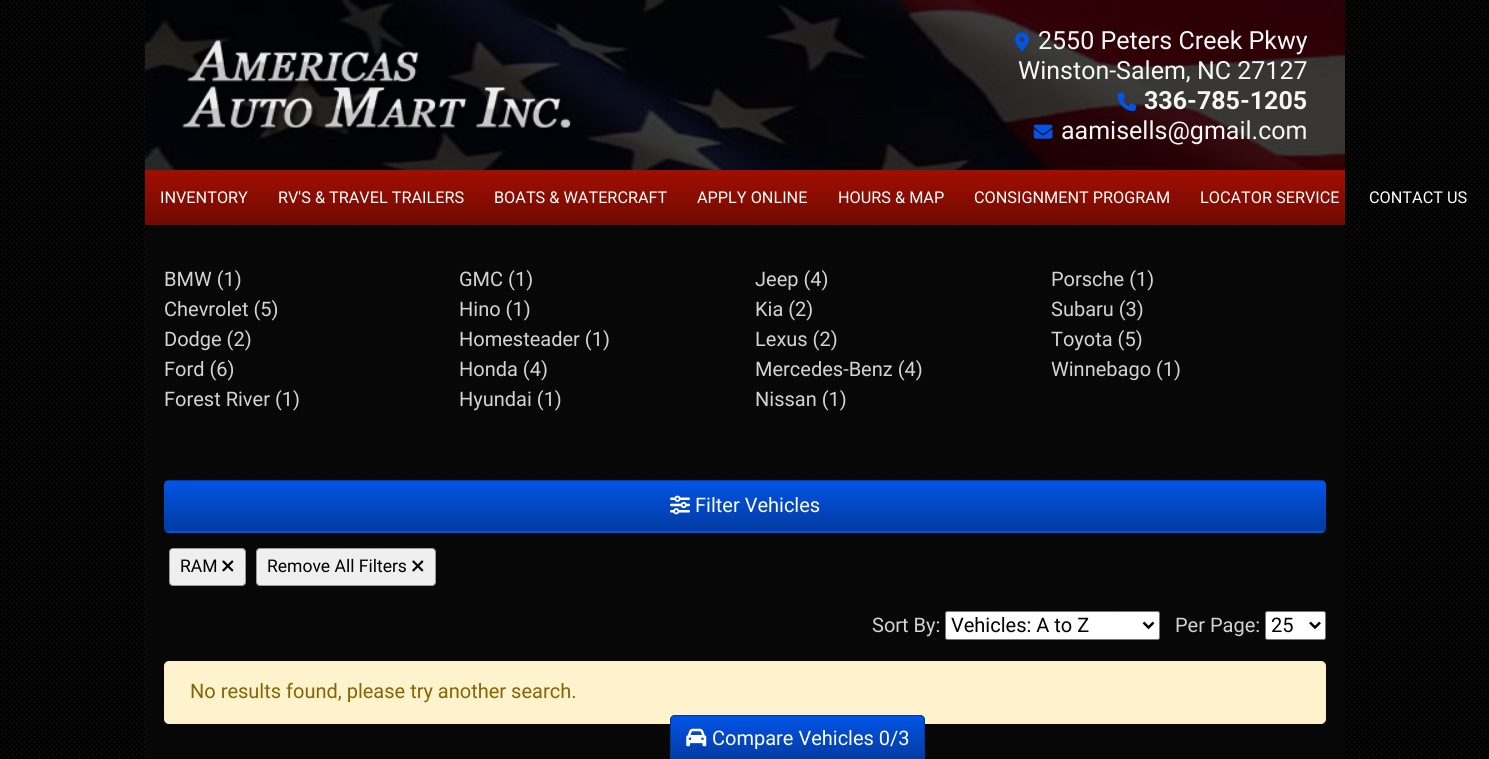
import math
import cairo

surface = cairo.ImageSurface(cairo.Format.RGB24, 1489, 759)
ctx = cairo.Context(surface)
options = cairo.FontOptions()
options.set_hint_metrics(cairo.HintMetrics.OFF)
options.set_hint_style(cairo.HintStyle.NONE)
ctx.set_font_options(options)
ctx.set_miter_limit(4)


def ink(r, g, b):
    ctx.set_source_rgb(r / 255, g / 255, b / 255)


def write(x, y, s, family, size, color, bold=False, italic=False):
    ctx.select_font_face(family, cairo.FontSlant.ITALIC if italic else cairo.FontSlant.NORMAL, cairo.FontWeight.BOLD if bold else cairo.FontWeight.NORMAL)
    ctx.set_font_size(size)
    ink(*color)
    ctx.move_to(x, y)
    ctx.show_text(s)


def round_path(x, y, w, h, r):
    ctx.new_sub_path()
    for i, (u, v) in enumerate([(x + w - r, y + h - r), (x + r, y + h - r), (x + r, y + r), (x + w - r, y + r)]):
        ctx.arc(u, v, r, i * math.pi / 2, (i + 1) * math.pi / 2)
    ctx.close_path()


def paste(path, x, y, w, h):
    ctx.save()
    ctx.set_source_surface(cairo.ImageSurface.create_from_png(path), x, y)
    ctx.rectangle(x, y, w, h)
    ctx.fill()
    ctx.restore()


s1 = dict(family="Roboto", size=25, color=(247, 247, 247))
s2 = dict(family="Roboto", size=25, color=(247, 247, 247), bold=True)
s3 = dict(family="Roboto", size=16.25, color=(255, 255, 255))
s4 = dict(family="Roboto", size=20, color=(212, 212, 212))
s5 = dict(family="Roboto", size=20, color=(255, 255, 255))
s6 = dict(family="Roboto", size=17.5, color=(0, 0, 0))
s7 = dict(family="Roboto", size=20, color=(0, 0, 0))
s8 = dict(family="Roboto", size=20, color=(133, 100, 4))

ink(0, 0, 0)
ctx.paint()
paste("pic1.png", 1, 1, 1488, 758)
paste("pic2.png", 145, 0, 1200, 170)
paste("pic3.png", 182, 39, 390, 95)
paste("pic4.png", 1015, 32, 15, 19)
write(1038, 49, "2550 Peters Creek Pkwy", **s1)
write(1018, 79, "Winston-Salem, NC 27127", **s1)
paste("pic5.png", 1117, 92, 20, 20)
write(1144, 109, "336-785-1205", **s2)
paste("pic6.png", 1033, 124, 20, 15)
write(1061, 139, "aamisells@gmail.com", **s1)
gradient = cairo.LinearGradient(745, 170, 745, 225)
gradient.add_color_stop_rgba(0, 0.631, 0.055, 0.004, 1)
gradient.add_color_stop_rgba(1, 0.443, 0.039, 0.004, 1)
ctx.set_source(gradient)
ctx.rectangle(145, 170, 1200, 55)
ctx.fill()
write(160, 203, "INVENTORY", **s3)
write(278, 203, "RV'S & TRAVEL TRAILERS", **s3)
write(494, 203, "BOATS & WATERCRAFT", **s3)
write(697, 203, "APPLY ONLINE", **s3)
write(838, 203, "HOURS & MAP", **s3)
write(974, 203, "CONSIGNMENT PROGRAM", **s3)
write(1200, 203, "LOCATOR SERVICE", **s3)
write(1369, 203, "CONTACT US", **s3)
ctx.set_source_rgba(0.031, 0.031, 0.031, 0.9)
ctx.rectangle(145, 225, 1200, 534)
ctx.fill()
write(164, 286, "BMW (1)", **s4)
write(459, 286, "GMC (1)", **s4)
write(755, 286, "Jeep (4)", **s4)
write(1051, 286, "Porsche (1)", **s4)
write(164, 316, "Chevrolet (5)", **s4)
write(459, 316, "Hino (1)", **s4)
write(755, 316, "Kia (2)", **s4)
write(1051, 316, "Subaru (3)", **s4)
write(164, 346, "Dodge (2)", **s4)
write(459, 346, "Homesteader (1)", **s4)
write(755, 346, "Lexus (2)", **s4)
write(1051, 346, "Toyota (5)", **s4)
write(164, 376, "Ford (6)", **s4)
write(459, 376, "Honda (4)", **s4)
write(755, 376, "Mercedes-Benz (4)", **s4)
write(1051, 376, "Winnebago (1)", **s4)
write(164, 406, "Forest River (1)", **s4)
write(459, 406, "Hyundai (1)", **s4)
write(755, 406, "Nissan (1)", **s4)
ink(2, 84, 230)
round_path(164, 480, 1162, 53, 5)
ctx.fill()
ctx.save()
round_path(164, 480, 1162, 53, 5)
ctx.clip()
gradient = cairo.LinearGradient(745, 431, 745, 481)
gradient.add_color_stop_rgba(0, 0, 0, 0, 0)
gradient.add_color_stop_rgba(1, 0, 0, 0, 0.3)
ctx.set_source(gradient)
ctx.rectangle(164, 480, 1162, 1)
ctx.fill()
gradient = cairo.LinearGradient(745, 481, 745, 531)
gradient.add_color_stop_rgba(0, 0, 0, 0, 0)
gradient.add_color_stop_rgba(1, 0, 0, 0, 0.3)
ctx.set_source(gradient)
ctx.rectangle(164, 485, 1162, 46)
ctx.fill()
ctx.restore()
paste("pic7.png", 670, 495, 20, 20)
write(695, 512, "Filter Vehicles", **s5)
ink(239, 239, 239)
round_path(169.5, 548.5, 76, 37, 3.5)
ctx.fill_preserve()
ink(153, 153, 153)
ctx.set_line_width(1)
ctx.stroke()
write(180, 572, "RAM", **s6)
paste("pic8.png", 222, 560, 12, 12)
ink(239, 239, 239)
round_path(256.5, 548.5, 179, 37, 3.5)
ctx.fill_preserve()
ink(153, 153, 153)
ctx.stroke()
write(267, 572, "Remove All Filters", **s6)
paste("pic8.png", 412, 560, 12, 12)
write(872, 632, "Sort By:", **s4)
ink(255, 255, 255)
round_path(945.5, 611.5, 214, 28, 2)
ctx.fill_preserve()
ink(118, 118, 118)
ctx.stroke()
ctx.new_path()
ctx.move_to(1143.5, 622.5)
ctx.line_to(1148.5, 627.5)
ctx.line_to(1153.5, 622.5)
ink(0, 0, 0)
ctx.set_line_width(2.5)
ctx.stroke()
write(951, 632, "Vehicles: A to Z", **s7)
write(1175, 632, "Per Page:", **s4)
ink(255, 255, 255)
round_path(1265.5, 611.5, 60, 28, 2)
ctx.fill_preserve()
ink(118, 118, 118)
ctx.set_line_width(1)
ctx.stroke()
ctx.new_path()
ctx.move_to(1310, 622.5)
ctx.line_to(1315, 627.5)
ctx.line_to(1320, 622.5)
ink(0, 0, 0)
ctx.set_line_width(2.5)
ctx.stroke()
write(1271, 632, "25", **s7)
ink(255, 243, 205)
round_path(164.5, 661.5, 1161, 62, 4.5)
ctx.fill_preserve()
ink(255, 238, 186)
ctx.set_line_width(1)
ctx.stroke()
write(190, 698, "No results found, please try another search.", **s8)
ink(2, 84, 230)
round_path(670, 715, 255, 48, 5)
ctx.fill()
gradient = cairo.LinearGradient(798, 716, 798, 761)
gradient.add_color_stop_rgba(0, 0, 0, 0, 0)
gradient.add_color_stop_rgba(1, 0, 0, 0, 0.3)
ctx.set_source(gradient)
ctx.rectangle(670, 719, 255, 40)
ctx.fill()
round_path(670.5, 715.5, 254, 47, 4.5)
ink(1, 56, 154)
ctx.stroke()
paste("pic9.png", 686, 728, 21, 19)
write(712, 745, "Compare Vehicles 0/3", **s5)
surface.write_to_png("screenshot.png")
